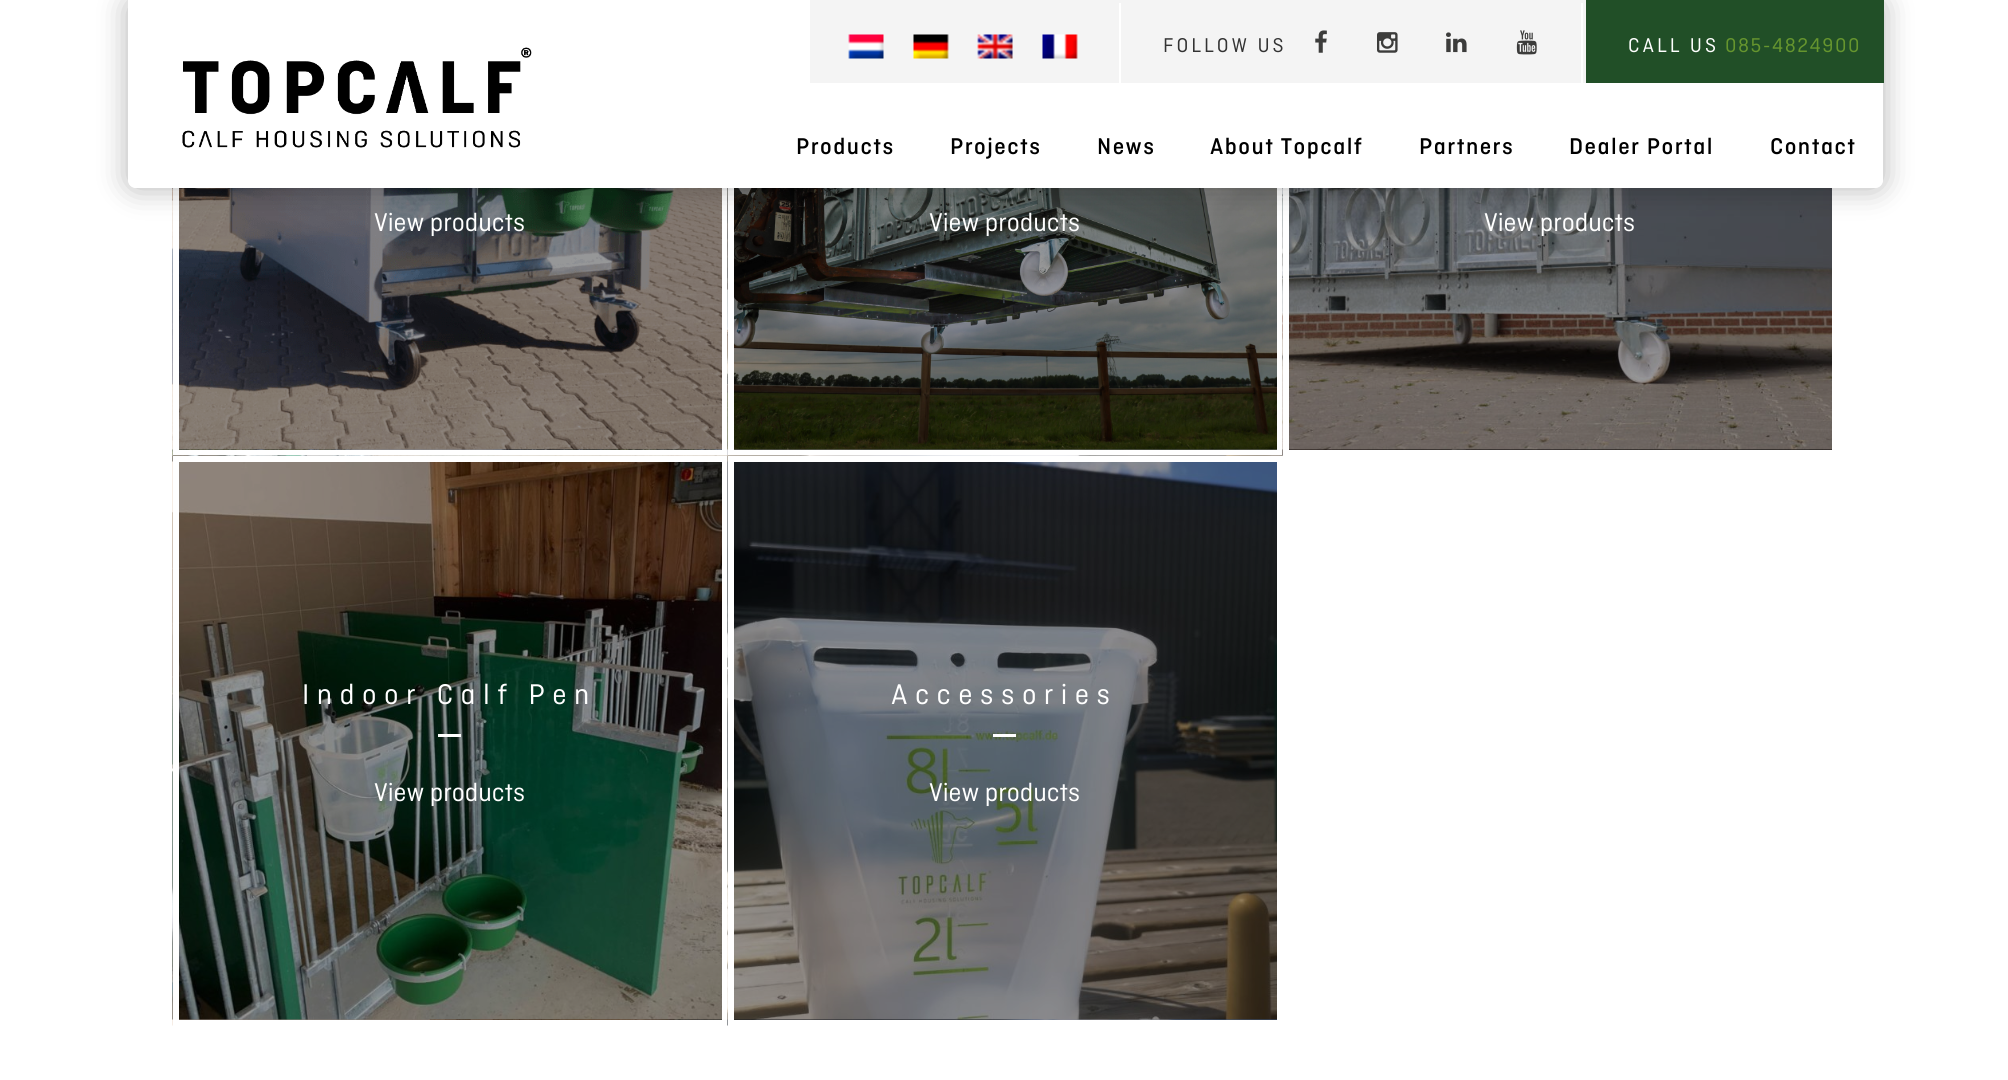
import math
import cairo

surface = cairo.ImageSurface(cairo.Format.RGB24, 2008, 1080)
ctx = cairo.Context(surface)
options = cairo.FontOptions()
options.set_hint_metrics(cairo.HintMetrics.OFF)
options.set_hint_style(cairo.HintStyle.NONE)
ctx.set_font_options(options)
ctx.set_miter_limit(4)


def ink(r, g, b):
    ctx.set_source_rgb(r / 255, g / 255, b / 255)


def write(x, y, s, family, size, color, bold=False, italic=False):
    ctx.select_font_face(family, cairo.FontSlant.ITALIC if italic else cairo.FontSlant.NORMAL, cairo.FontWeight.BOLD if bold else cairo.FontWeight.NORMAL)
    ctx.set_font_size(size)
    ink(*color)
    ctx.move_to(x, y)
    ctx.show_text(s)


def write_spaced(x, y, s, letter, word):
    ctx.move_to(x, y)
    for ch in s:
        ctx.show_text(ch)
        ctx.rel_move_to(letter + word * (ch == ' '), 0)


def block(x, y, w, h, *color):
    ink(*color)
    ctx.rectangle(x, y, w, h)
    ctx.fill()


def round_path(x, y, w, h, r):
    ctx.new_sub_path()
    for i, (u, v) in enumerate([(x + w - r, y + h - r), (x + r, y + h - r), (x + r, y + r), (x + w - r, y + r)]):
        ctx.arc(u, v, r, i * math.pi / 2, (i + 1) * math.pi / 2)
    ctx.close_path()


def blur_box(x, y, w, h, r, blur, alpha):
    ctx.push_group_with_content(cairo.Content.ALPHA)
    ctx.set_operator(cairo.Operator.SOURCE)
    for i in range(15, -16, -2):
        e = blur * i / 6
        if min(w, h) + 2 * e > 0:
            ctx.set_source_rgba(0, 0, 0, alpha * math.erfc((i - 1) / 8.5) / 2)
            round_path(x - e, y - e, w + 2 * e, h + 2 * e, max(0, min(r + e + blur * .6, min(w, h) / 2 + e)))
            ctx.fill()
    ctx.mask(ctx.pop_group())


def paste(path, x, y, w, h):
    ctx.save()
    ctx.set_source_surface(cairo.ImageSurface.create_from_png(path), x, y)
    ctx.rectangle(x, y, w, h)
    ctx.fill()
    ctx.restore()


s1 = dict(family="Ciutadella", size=27, color=(255, 255, 255))

ink(255, 255, 255)
ctx.paint()
paste("pic10.png", 172, 188, 550, 268)
ctx.rectangle(176, -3, 549, 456)
ink(255, 255, 255)
ctx.set_line_width(6)
ctx.stroke()
paste("pic11.png", 727, 188, 550, 268)
ctx.rectangle(731, -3, 549, 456)
ctx.stroke()
paste("pic12.png", 1282, 188, 550, 268)
ctx.rectangle(1286, -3, 549, 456)
ctx.stroke()
ctx.save()
ctx.set_fill_rule(cairo.FillRule.EVEN_ODD)
ctx.new_path()
ctx.move_to(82, 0)
ctx.line_to(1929, 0)
ctx.line_to(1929, 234)
ctx.line_to(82, 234)
ctx.close_path()
ctx.move_to(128, 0)
ctx.line_to(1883, 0)
ctx.line_to(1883, 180)
ctx.curve_to(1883, 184.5, 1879.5, 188, 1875, 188)
ctx.line_to(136, 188)
ctx.curve_to(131.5, 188, 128, 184.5, 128, 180)
ctx.close_path()
ctx.clip()
ink(0, 0, 0)
blur_box(128, 0, 1755, 188, 8, 15, 0.3)
ctx.restore()
paste("pic1.png", 182, 47, 350, 101)
block(810, 0, 776, 83, 244, 244, 244)
paste("pic2.png", 848, 34, 36, 25)
paste("pic3.png", 913, 34, 36, 25)
paste("pic4.png", 977, 34, 36, 25)
paste("pic5.png", 1042, 34, 36, 25)
block(1581, 3, 2, 80, 255, 255, 255)
block(1119, 3, 2, 80, 255, 255, 255)
ctx.select_font_face("Ciutadella")
ctx.set_font_size(21)
ink(51, 51, 51)
write_spaced(1163, 52, "FOLLOW US", 3, 0)
paste("pic6.png", 1315, 30, 12, 23)
paste("pic7.png", 1377, 32, 21, 21)
paste("pic8.png", 1446, 32, 21, 21)
paste("pic9.png", 1516, 30, 21, 25)
block(1586, 0, 298, 83, 33, 79, 39)
ink(255, 255, 255)
write_spaced(1628, 52, "CALL US", 3, 0)
ink(102, 149, 46)
write_spaced(1725, 52, "085-4824900", 1.5, 0)
ctx.select_font_face("Ciutadella Medium")
ctx.set_font_size(24)
ink(0, 0, 0)
write_spaced(796, 154, "Products", 1.5, 0)
write_spaced(950, 154, "Projects", 1.5, 0)
write_spaced(1097, 154, "News", 1.5, 0)
write_spaced(1210, 154, "About Topcalf", 1.5, 0)
write_spaced(1419, 154, "Partners", 1.5, 0)
write_spaced(1569, 154, "Dealer Portal", 1.5, 0)
write_spaced(1770, 154, "Contact", 1.5, 0)
write(374, 231, "View products", **s1)
write(929, 231, "View products", **s1)
write(1484, 231, "View products", **s1)
paste("pic13.png", 172, 455, 556, 571)
ctx.rectangle(176, 459, 549, 564)
ctx.stroke()
ctx.set_font_size(30)
write_spaced(302, 704, "Indoor Calf Pen", 7.5, 0)
block(438, 734, 23, 3, 255, 255, 255)
write(374, 801, "View products", **s1)
paste("pic14.png", 727, 455, 556, 571)
ctx.rectangle(731, 459, 549, 564)
ctx.stroke()
ctx.set_font_size(30)
write_spaced(891, 704, "Accessories", 7.5, 0)
block(993, 734, 23, 3, 255, 255, 255)
write(929, 801, "View products", **s1)
surface.write_to_png("screenshot.png")
